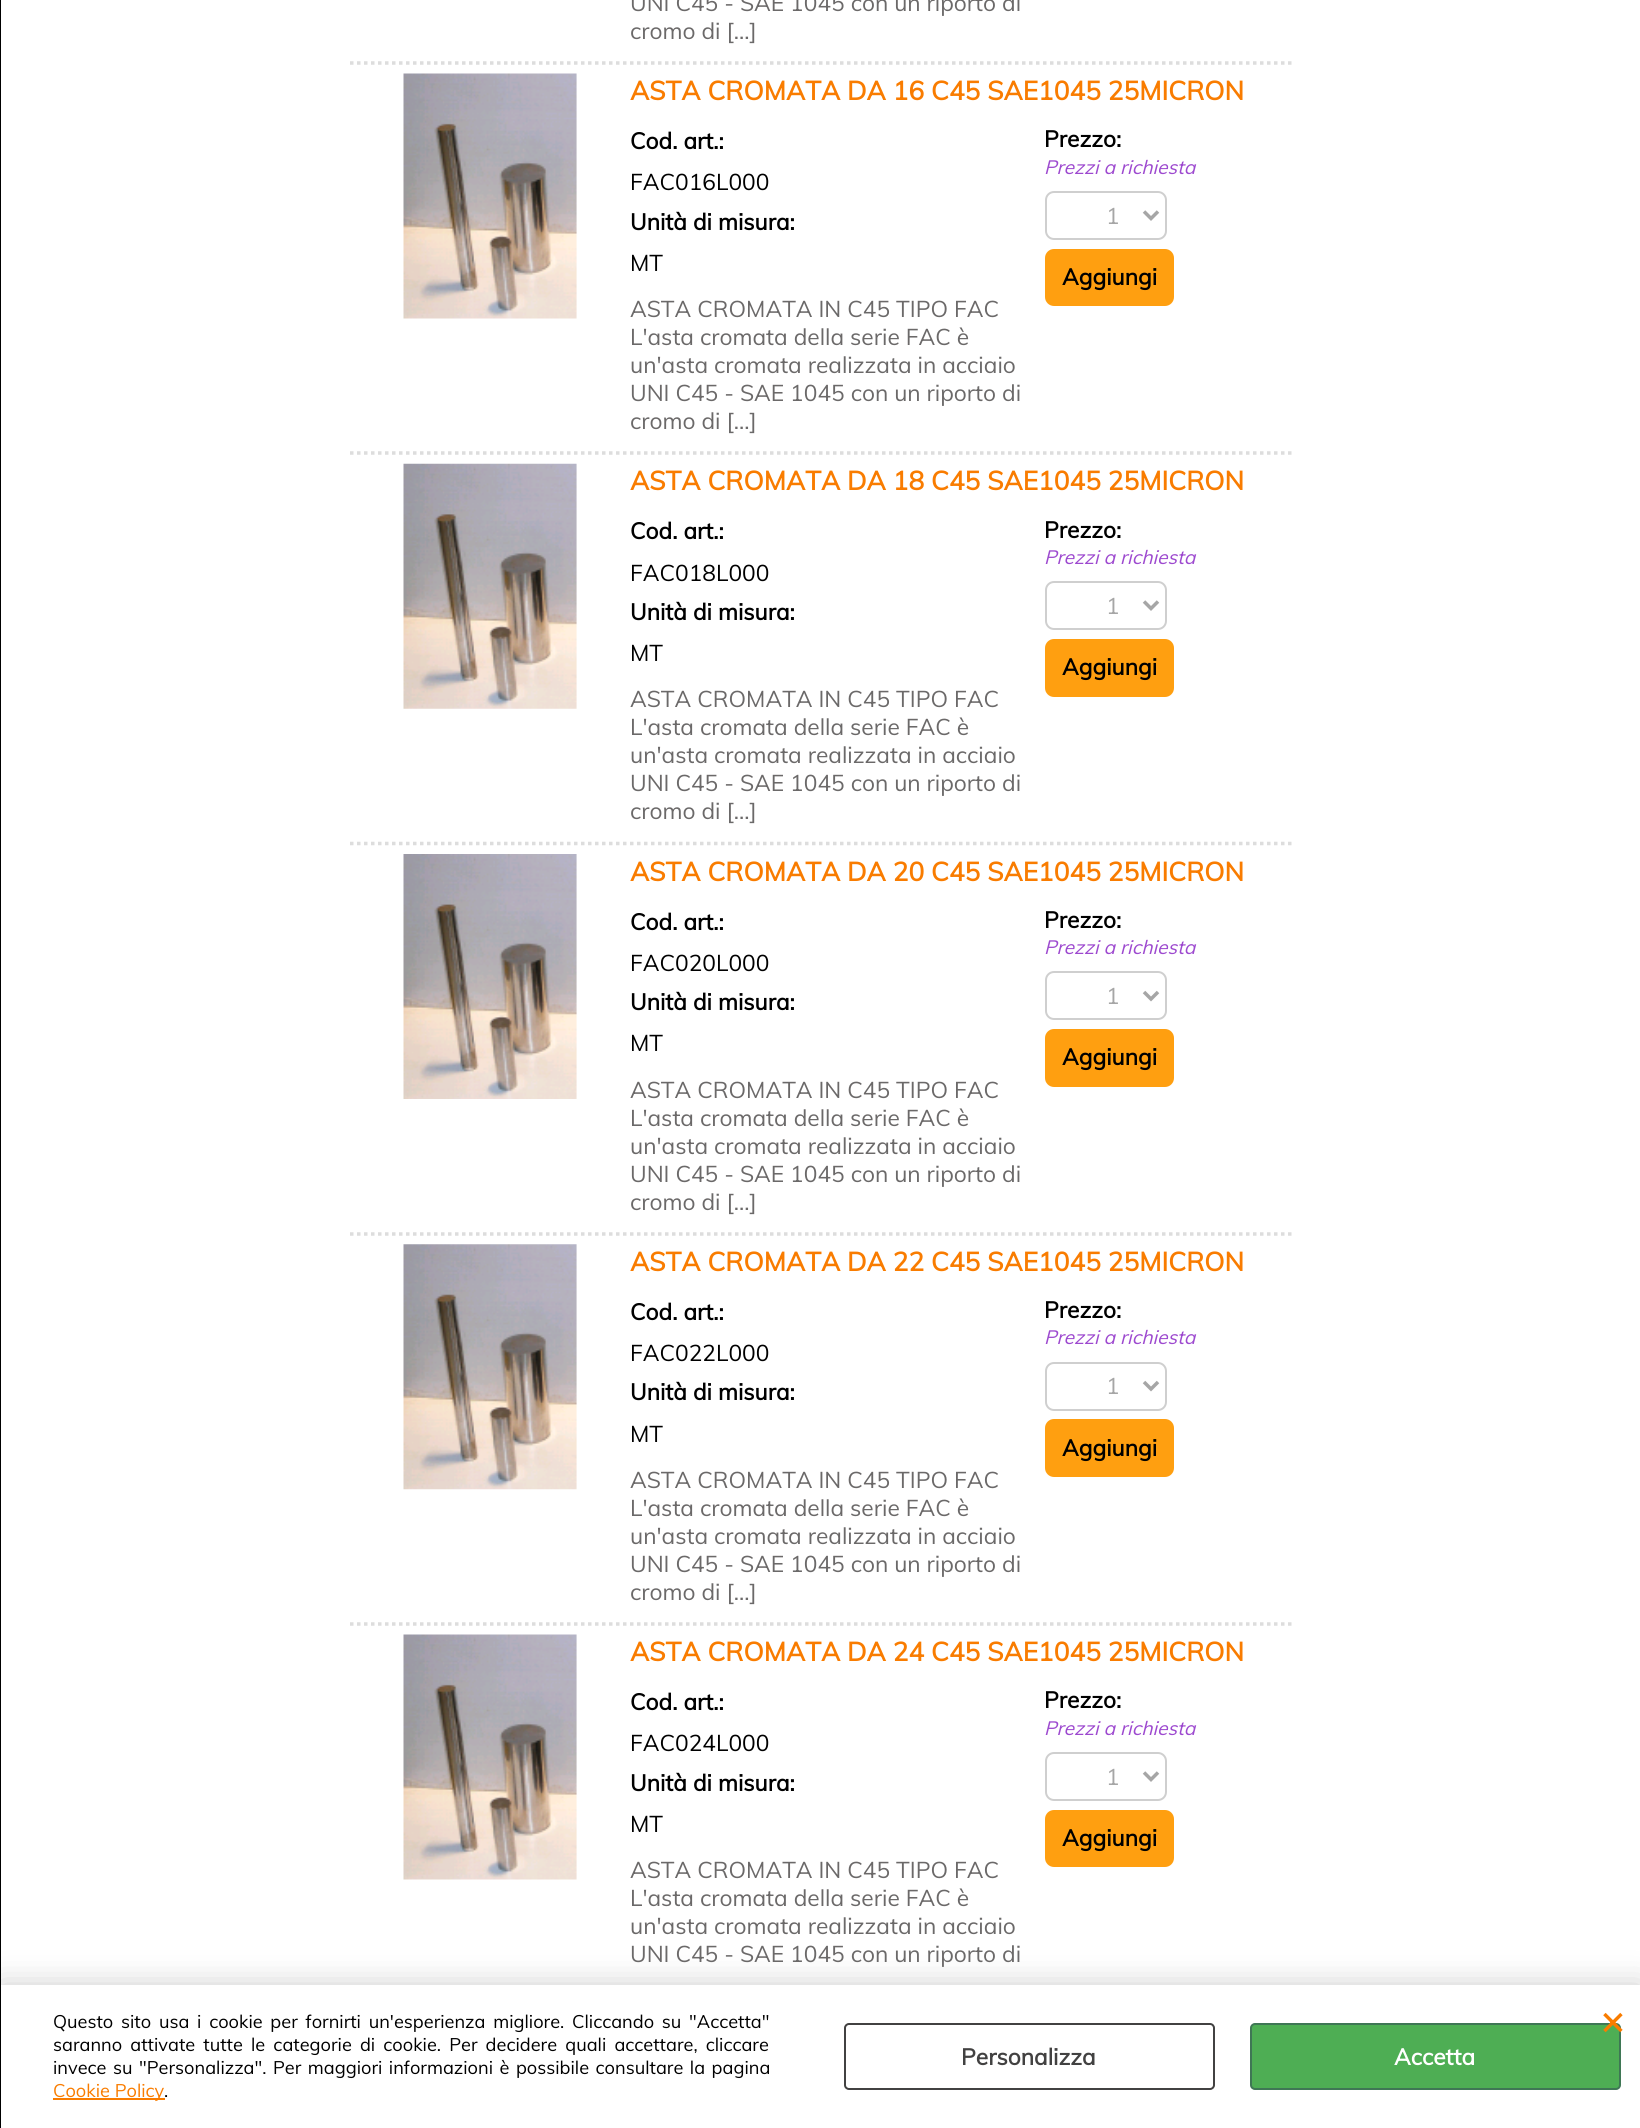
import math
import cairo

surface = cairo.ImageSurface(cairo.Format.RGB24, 1640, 2128)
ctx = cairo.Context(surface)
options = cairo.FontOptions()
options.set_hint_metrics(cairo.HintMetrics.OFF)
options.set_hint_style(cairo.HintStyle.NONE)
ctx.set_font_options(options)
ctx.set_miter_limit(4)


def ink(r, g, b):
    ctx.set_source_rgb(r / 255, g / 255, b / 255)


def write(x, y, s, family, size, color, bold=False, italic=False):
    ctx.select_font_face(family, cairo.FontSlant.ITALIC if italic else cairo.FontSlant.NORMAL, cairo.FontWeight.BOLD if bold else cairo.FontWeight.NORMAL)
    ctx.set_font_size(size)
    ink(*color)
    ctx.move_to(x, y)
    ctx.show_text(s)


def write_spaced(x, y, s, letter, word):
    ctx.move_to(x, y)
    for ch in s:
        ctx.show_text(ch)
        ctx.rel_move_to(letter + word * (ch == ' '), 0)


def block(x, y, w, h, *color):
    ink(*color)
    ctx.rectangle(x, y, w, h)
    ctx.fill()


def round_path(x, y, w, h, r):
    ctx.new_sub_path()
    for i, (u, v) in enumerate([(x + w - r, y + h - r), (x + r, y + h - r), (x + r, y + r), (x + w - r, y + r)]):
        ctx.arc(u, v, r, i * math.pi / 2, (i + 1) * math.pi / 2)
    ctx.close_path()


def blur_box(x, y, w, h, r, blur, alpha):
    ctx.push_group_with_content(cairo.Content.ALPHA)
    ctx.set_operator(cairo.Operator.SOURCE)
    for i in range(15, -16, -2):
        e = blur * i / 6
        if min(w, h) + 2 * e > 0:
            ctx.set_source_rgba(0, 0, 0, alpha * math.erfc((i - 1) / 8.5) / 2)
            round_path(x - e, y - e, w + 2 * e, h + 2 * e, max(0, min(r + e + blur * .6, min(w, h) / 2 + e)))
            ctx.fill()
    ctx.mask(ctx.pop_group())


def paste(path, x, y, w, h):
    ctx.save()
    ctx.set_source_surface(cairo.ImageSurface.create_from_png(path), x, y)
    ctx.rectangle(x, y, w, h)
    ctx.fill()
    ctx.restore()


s1 = dict(family="Muli", size=22.75, color=(107, 105, 105))
s2 = dict(family="Muli", size=26.2, color=(249, 124, 0), bold=True)
s3 = dict(family="Muli", size=22.75, color=(0, 0, 0), bold=True)
s4 = dict(family="Muli", size=22.75, color=(0, 0, 0))
s5 = dict(family="Muli", size=19.25, color=(157, 73, 207), italic=True)
s6 = dict(family="Muli", size=22.75, color=(166, 166, 166))
s7 = dict(family="Muli", size=18.2, color=(249, 124, 0))
s8 = dict(family="Muli", size=18.2, color=(0, 0, 0))
s9 = dict(family="Muli", size=22.75, color=(66, 65, 65), bold=True)
s10 = dict(family="Muli", size=22.75, color=(255, 255, 255), bold=True)
s11 = dict(family="Muli", size=38, color=(249, 124, 0), bold=True)

ink(255, 255, 255)
ctx.paint()
ink(0, 0, 0)
blur_box(0, 1985, 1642, 143, 0, 16, 0.2)
block(0, 0, 1, 2128, 0, 0, 0)
ctx.new_path()
ctx.move_to(350, 63)
ctx.line_to(1291.5, 63)
ink(221, 221, 221)
ctx.set_line_width(3.5)
ctx.set_dash([3.5, 3.5])
ctx.stroke()
write(630, 11, "UNI C45 - SAE 1045 con un riporto di", **s1)
write(630, 39, "cromo di [...]", **s1)
ctx.new_path()
ctx.move_to(350, 453)
ctx.line_to(1291.5, 453)
ink(221, 221, 221)
ctx.stroke()
paste("pic1.png", 403, 73, 174, 246)
write(630, 100, "ASTA CROMATA DA 16 C45 SAE1045 25MICRON", **s2)
write(630, 149, "Cod. art.:", **s3)
write(630, 190, "FAC016L000", **s4)
write(630, 230, "Unità di misura:", **s3)
write(630, 271, "MT", **s4)
write(1044, 147, "Prezzo:", **s3)
write(1044, 174, "Prezzi a richiesta", **s5)
round_path(1046, 192, 120, 47, 8)
ink(207, 207, 207)
ctx.set_line_width(2)
ctx.set_dash([])
ctx.stroke()
ctx.new_path()
ctx.move_to(1144, 211.5)
ctx.line_to(1151, 218.5)
ctx.line_to(1158, 211.5)
ink(166, 166, 166)
ctx.set_line_width(3.5)
ctx.stroke()
write(1106, 224, "1", **s6)
ink(255, 159, 16)
round_path(1045, 249, 129, 57, 9)
ctx.fill()
write(1062, 285, "Aggiungi", **s3)
write(630, 317, "ASTA CROMATA IN C45 TIPO FAC", **s1)
write(630, 345, "L'asta cromata della serie FAC è", **s1)
write(630, 373, "un'asta cromata realizzata in acciaio", **s1)
write(630, 401, "UNI C45 - SAE 1045 con un riporto di", **s1)
write(630, 429, "cromo di [...]", **s1)
ctx.new_path()
ctx.move_to(350, 843.5)
ctx.line_to(1291.5, 843.5)
ink(221, 221, 221)
ctx.set_dash([3.5, 3.5])
ctx.stroke()
paste("pic2.png", 403, 463, 174, 246)
write(630, 490, "ASTA CROMATA DA 18 C45 SAE1045 25MICRON", **s2)
write(630, 539, "Cod. art.:", **s3)
write(630, 581, "FAC018L000", **s4)
write(630, 620, "Unità di misura:", **s3)
write(630, 661, "MT", **s4)
write(1044, 538, "Prezzo:", **s3)
write(1044, 564, "Prezzi a richiesta", **s5)
round_path(1046, 582, 120, 47, 8)
ink(207, 207, 207)
ctx.set_line_width(2)
ctx.set_dash([])
ctx.stroke()
ctx.new_path()
ctx.move_to(1144, 601.5)
ctx.line_to(1151, 608.5)
ctx.line_to(1158, 601.5)
ink(166, 166, 166)
ctx.set_line_width(3.5)
ctx.stroke()
write(1106, 614, "1", **s6)
ink(255, 159, 16)
round_path(1045, 639, 129, 58, 9)
ctx.fill()
write(1062, 675, "Aggiungi", **s3)
write(630, 707, "ASTA CROMATA IN C45 TIPO FAC", **s1)
write(630, 735, "L'asta cromata della serie FAC è", **s1)
write(630, 763, "un'asta cromata realizzata in acciaio", **s1)
write(630, 791, "UNI C45 - SAE 1045 con un riporto di", **s1)
write(630, 819, "cromo di [...]", **s1)
ctx.new_path()
ctx.move_to(350, 1234)
ctx.line_to(1291.5, 1234)
ink(221, 221, 221)
ctx.set_dash([3.5, 3.5])
ctx.stroke()
paste("pic3.png", 403, 854, 174, 245)
write(630, 881, "ASTA CROMATA DA 20 C45 SAE1045 25MICRON", **s2)
write(630, 930, "Cod. art.:", **s3)
write(630, 971, "FAC020L000", **s4)
write(630, 1010, "Unità di misura:", **s3)
write(630, 1051, "MT", **s4)
write(1044, 928, "Prezzo:", **s3)
write(1044, 954, "Prezzi a richiesta", **s5)
round_path(1046, 972, 120, 47, 8)
ink(207, 207, 207)
ctx.set_line_width(2)
ctx.set_dash([])
ctx.stroke()
ctx.new_path()
ctx.move_to(1144, 992)
ctx.line_to(1151, 999)
ctx.line_to(1158, 992)
ink(166, 166, 166)
ctx.set_line_width(3.5)
ctx.stroke()
write(1106, 1004, "1", **s6)
ink(255, 159, 16)
round_path(1045, 1029, 129, 58, 9)
ctx.fill()
write(1062, 1065, "Aggiungi", **s3)
write(630, 1098, "ASTA CROMATA IN C45 TIPO FAC", **s1)
write(630, 1126, "L'asta cromata della serie FAC è", **s1)
write(630, 1154, "un'asta cromata realizzata in acciaio", **s1)
write(630, 1182, "UNI C45 - SAE 1045 con un riporto di", **s1)
write(630, 1210, "cromo di [...]", **s1)
ctx.new_path()
ctx.move_to(350, 1624)
ctx.line_to(1291.5, 1624)
ink(221, 221, 221)
ctx.set_dash([3.5, 3.5])
ctx.stroke()
paste("pic4.png", 403, 1244, 174, 246)
write(630, 1271, "ASTA CROMATA DA 22 C45 SAE1045 25MICRON", **s2)
write(630, 1320, "Cod. art.:", **s3)
write(630, 1361, "FAC022L000", **s4)
write(630, 1400, "Unità di misura:", **s3)
write(630, 1442, "MT", **s4)
write(1044, 1318, "Prezzo:", **s3)
write(1044, 1344, "Prezzi a richiesta", **s5)
round_path(1046, 1363, 120, 47, 8)
ink(207, 207, 207)
ctx.set_line_width(2)
ctx.set_dash([])
ctx.stroke()
ctx.new_path()
ctx.move_to(1144, 1382)
ctx.line_to(1151, 1389)
ctx.line_to(1158, 1382)
ink(166, 166, 166)
ctx.set_line_width(3.5)
ctx.stroke()
write(1106, 1394, "1", **s6)
ink(255, 159, 16)
round_path(1045, 1419, 129, 58, 9)
ctx.fill()
write(1062, 1456, "Aggiungi", **s3)
write(630, 1488, "ASTA CROMATA IN C45 TIPO FAC", **s1)
write(630, 1516, "L'asta cromata della serie FAC è", **s1)
write(630, 1544, "un'asta cromata realizzata in acciaio", **s1)
write(630, 1572, "UNI C45 - SAE 1045 con un riporto di", **s1)
write(630, 1600, "cromo di [...]", **s1)
paste("pic1.png", 403, 1634, 174, 246)
write(630, 1661, "ASTA CROMATA DA 24 C45 SAE1045 25MICRON", **s2)
write(630, 1710, "Cod. art.:", **s3)
write(630, 1751, "FAC024L000", **s4)
write(630, 1791, "Unità di misura:", **s3)
write(630, 1832, "MT", **s4)
write(1044, 1708, "Prezzo:", **s3)
write(1044, 1735, "Prezzi a richiesta", **s5)
round_path(1046, 1753, 120, 47, 8)
ink(207, 207, 207)
ctx.set_line_width(2)
ctx.stroke()
ctx.new_path()
ctx.move_to(1144, 1772.5)
ctx.line_to(1151, 1779.5)
ctx.line_to(1158, 1772.5)
ink(166, 166, 166)
ctx.set_line_width(3.5)
ctx.stroke()
write(1106, 1785, "1", **s6)
ink(255, 159, 16)
round_path(1045, 1810, 129, 57, 9)
ctx.fill()
write(1062, 1846, "Aggiungi", **s3)
write(630, 1878, "ASTA CROMATA IN C45 TIPO FAC", **s1)
write(630, 1906, "L'asta cromata della serie FAC è", **s1)
write(630, 1934, "un'asta cromata realizzata in acciaio", **s1)
write(630, 1962, "UNI C45 - SAE 1045 con un riporto di", **s1)
block(1, 1985, 1639, 143, 255, 255, 255)
ctx.set_font_size(18.2)
ink(0, 0, 0)
write_spaced(53, 2028, "Questo sito usa i cookie per fornirti un'esperienza migliore. Cliccando su \"Accetta\"", 0, 3)
write_spaced(53, 2051, "saranno attivate tutte le categorie di cookie. Per decidere quali accettare, cliccare", 0, 3.4)
write_spaced(53, 2074, "invece su \"Personalizza\". Per maggiori informazioni è possibile consultare la pagina", 0, 1.75)
block(53, 2098, 112, 2, 249, 124, 0)
write(53, 2097, "Cookie Policy", **s7)
write(164, 2097, ".", **s8)
round_path(845, 2024, 369, 65, 4)
ink(66, 65, 65)
ctx.set_line_width(2)
ctx.stroke()
write(961, 2065, "Personalizza", **s9)
ink(78, 174, 84)
round_path(1251, 2024, 369, 65, 4)
ctx.fill_preserve()
ink(63, 119, 85)
ctx.stroke()
write(1394, 2065, "Accetta", **s10)
write(1601, 2034, "×", **s11)
surface.write_to_png("screenshot.png")
